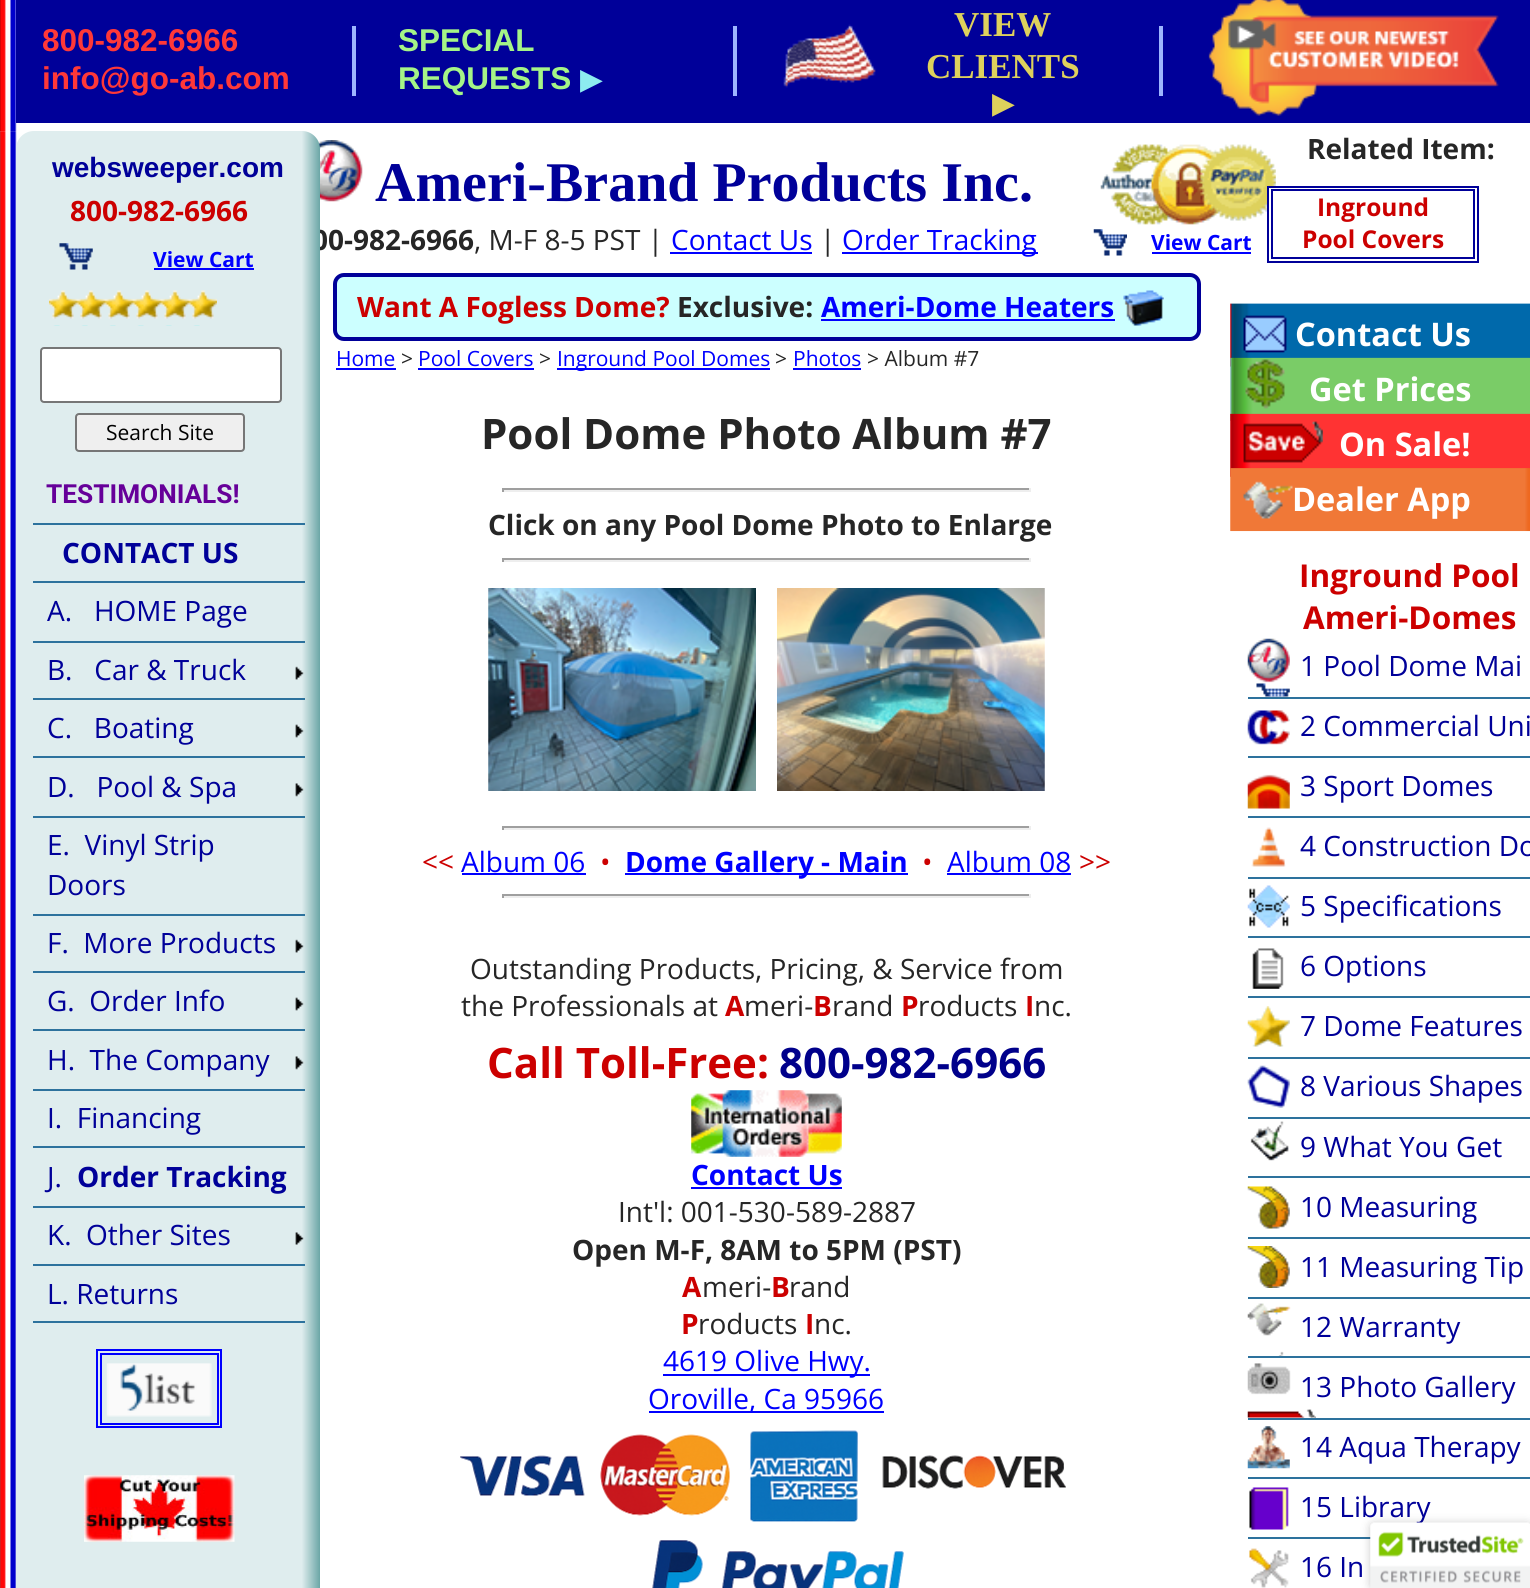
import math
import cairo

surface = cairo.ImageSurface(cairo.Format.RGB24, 1530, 1588)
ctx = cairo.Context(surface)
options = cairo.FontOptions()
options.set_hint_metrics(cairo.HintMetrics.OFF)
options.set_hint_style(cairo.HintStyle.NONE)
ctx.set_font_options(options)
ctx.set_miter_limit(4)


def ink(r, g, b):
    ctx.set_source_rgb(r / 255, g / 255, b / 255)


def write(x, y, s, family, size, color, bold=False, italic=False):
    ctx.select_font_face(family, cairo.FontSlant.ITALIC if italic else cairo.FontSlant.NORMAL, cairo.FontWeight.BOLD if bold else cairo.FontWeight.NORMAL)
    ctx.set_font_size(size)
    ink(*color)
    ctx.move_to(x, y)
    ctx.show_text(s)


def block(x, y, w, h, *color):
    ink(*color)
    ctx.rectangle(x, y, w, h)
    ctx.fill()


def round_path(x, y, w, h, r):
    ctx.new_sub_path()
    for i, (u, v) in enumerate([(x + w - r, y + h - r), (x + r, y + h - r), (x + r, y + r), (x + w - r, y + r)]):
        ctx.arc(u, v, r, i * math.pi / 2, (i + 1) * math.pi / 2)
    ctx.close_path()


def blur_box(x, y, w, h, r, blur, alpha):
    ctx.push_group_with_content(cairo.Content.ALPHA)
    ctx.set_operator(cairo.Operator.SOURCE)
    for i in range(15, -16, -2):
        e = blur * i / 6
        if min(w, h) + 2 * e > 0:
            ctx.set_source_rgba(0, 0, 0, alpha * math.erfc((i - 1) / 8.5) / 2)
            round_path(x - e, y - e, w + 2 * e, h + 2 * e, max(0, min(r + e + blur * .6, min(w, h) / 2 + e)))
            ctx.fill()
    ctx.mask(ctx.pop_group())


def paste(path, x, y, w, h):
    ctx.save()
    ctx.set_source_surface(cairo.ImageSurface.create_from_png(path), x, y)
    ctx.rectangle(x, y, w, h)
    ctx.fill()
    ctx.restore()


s1 = dict(family="Liberation Sans", size=31.5, color=(255, 56, 56), bold=True)
s2 = dict(family="Liberation Sans", size=31.5, color=(165, 244, 135), bold=True)
s3 = dict(family="DejaVu Sans", size=28, color=(141, 236, 240), bold=True)
s4 = dict(family="Liberation Serif", size=35, color=(222, 209, 92), bold=True)
s5 = dict(family="DejaVu Sans", size=28, color=(222, 209, 92), bold=True)
s6 = dict(family="Open Sans", size=28, color=(38, 38, 38), bold=True)
s7 = dict(family="Liberation Sans", size=28, color=(0, 0, 153), bold=True)
s8 = dict(family="Open Sans", size=28, color=(204, 0, 0), bold=True)
s9 = dict(family="Open Sans", size=21, color=(0, 0, 255), bold=True)
s10 = dict(family="Open Sans", size=21, color=(0, 0, 0))
s11 = dict(family="Roboto", size=26.25, color=(102, 0, 153), bold=True)
s12 = dict(family="Open Sans", size=28, color=(0, 0, 153), bold=True)
s13 = dict(family="Open Sans", size=28, color=(0, 0, 153))
s14 = dict(family="Liberation Serif", size=56, color=(0, 0, 153), bold=True)
s15 = dict(family="Open Sans", size=28, color=(38, 38, 38))
s16 = dict(family="Open Sans", size=28, color=(0, 0, 255))
s17 = dict(family="Open Sans", size=24.5, color=(204, 0, 0), bold=True)
s18 = dict(family="Open Sans", size=32.5, color=(255, 255, 255), bold=True)
s19 = dict(family="Open Sans", size=31.5, color=(204, 0, 0), bold=True)
s20 = dict(family="Open Sans", size=28, color=(0, 0, 255), bold=True)
s21 = dict(family="Open Sans", size=21, color=(0, 0, 255))
s22 = dict(family="Open Sans", size=21, color=(38, 38, 38))
s23 = dict(family="Open Sans", size=42, color=(38, 38, 38), bold=True)
s24 = dict(family="Open Sans", size=28, color=(204, 0, 0))
s25 = dict(family="Open Sans", size=42, color=(204, 0, 0), bold=True)
s26 = dict(family="Open Sans", size=42, color=(0, 0, 139), bold=True)

ink(255, 255, 255)
ctx.paint()
paste("pic1.png", 0, 0, 17, 132)
paste("pic2.png", 0, 0, 17, 132)
block(16, 0, 1514, 123, 0, 0, 153)
write(42, 51, "800-982-6966", **s1)
write(42, 89, "info@go-ab.com", **s1)
block(352, 26, 4, 70, 157, 181, 255)
write(398, 51, "SPECIAL", **s2)
write(398, 89, "REQUESTS", **s2)
write(580, 89, "▶", **s3)
block(733, 26, 4, 70, 157, 181, 255)
paste("pic3.png", 783, 24, 93, 64)
write(954, 36, "VIEW", **s4)
write(926, 78, "CLIENTS", **s4)
write(992, 113, "▶", **s5)
block(1159, 26, 4, 70, 157, 181, 255)
paste("pic4.png", 1208, 0, 291, 116)
paste("pic5.png", 0, 131, 17, 1457)
paste("pic14.png", 318, 140, 45, 62)
write(312, 250, "00-982-6966", **s6)
gradient = cairo.LinearGradient(320, 1130, 16, 1130)
gradient.add_color_stop_rgba(0, 0.42, 0.651, 0.651, 1)
gradient.add_color_stop_rgba(0.06, 0.875, 0.929, 0.933, 1)
ctx.set_source(gradient)
round_path(16, 131, 304, 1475, 18)
ctx.fill()
write(52, 177, "websweeper.com", **s7)
write(70, 221, "800-982-6966", **s8)
paste("pic6.png", 59, 243, 34, 27)
write(153, 267, "View Cart", **s9)
block(154, 268, 100, 2, 0, 0, 255)
paste("pic7.png", 49, 290, 168, 36)
ink(255, 255, 255)
round_path(41, 348, 240, 54, 3)
ctx.fill_preserve()
ink(118, 118, 118)
ctx.stroke()
ink(239, 239, 239)
round_path(76, 414, 168, 37, 3)
ctx.fill_preserve()
ink(118, 118, 118)
ctx.stroke()
write(106, 440, "Search Site", **s10)
block(33, 523, 272, 2, 45, 114, 157)
write(46, 503, "TESTIMONIALS!", **s11)
block(33, 581, 272, 2, 45, 114, 157)
write(62, 563, "CONTACT US", **s12)
block(33, 641, 272, 2, 45, 114, 157)
write(47, 621, "A.   HOME Page", **s13)
block(33, 698, 272, 2, 45, 114, 157)
paste("pic8.png", 295, 666, 9, 14)
write(47, 680, "B.   Car & Truck", **s13)
block(33, 756, 272, 2, 45, 114, 157)
paste("pic9.png", 295, 724, 9, 14)
write(47, 738, "C.   Boating", **s13)
block(33, 816, 272, 2, 45, 114, 157)
paste("pic10.png", 295, 783, 9, 14)
write(47, 797, "D.   Pool & Spa", **s13)
block(33, 914, 272, 2, 45, 114, 157)
write(47, 855, "E.  Vinyl Strip", **s13)
write(47, 895, "Doors", **s13)
block(33, 971, 272, 2, 45, 114, 157)
paste("pic8.png", 295, 939, 9, 14)
write(47, 953, "F.  More Products", **s13)
block(33, 1029, 272, 2, 45, 114, 157)
paste("pic9.png", 295, 997, 9, 14)
write(47, 1011, "G.  Order Info", **s13)
block(33, 1089, 272, 2, 45, 114, 157)
paste("pic10.png", 295, 1056, 9, 14)
write(47, 1070, "H.  The Company", **s13)
block(33, 1146, 272, 2, 45, 114, 157)
write(47, 1128, "I.  Financing", **s13)
block(33, 1206, 272, 2, 45, 114, 157)
write(47, 1187, "J.", **s13)
write(77, 1187, "Order Tracking", **s12)
block(33, 1264, 272, 2, 45, 114, 157)
paste("pic11.png", 295, 1232, 9, 13)
write(47, 1245, "K.  Other Sites", **s13)
block(33, 1321, 272, 2, 45, 114, 157)
write(47, 1304, "L. Returns", **s13)
ctx.rectangle(97, 1350, 124, 77)
ink(0, 0, 255)
ctx.stroke()
ctx.rectangle(101, 1354, 117, 70)
ctx.stroke()
paste("pic12.png", 106, 1363, 106, 54)
paste("pic13.png", 84, 1475, 151, 67)
write(375, 201, "Ameri-Brand Products Inc.", **s14)
paste("pic15.png", 1100, 144, 176, 81)
write(474, 250, ", M-F 8-5 PST |", **s15)
write(671, 250, "Contact Us", **s16)
block(670, 252, 142, 2, 0, 0, 255)
write(820, 250, "|", **s15)
block(842, 252, 196, 2, 0, 0, 255)
write(842, 250, "Order Tracking", **s16)
paste("pic16.png", 1093, 229, 34, 27)
write(1151, 250, "View Cart", **s9)
block(1152, 252, 99, 2, 0, 0, 255)
write(1307, 159, "Related Item:", **s6)
block(1269, 188, 7, 19, 255, 255, 255)
ctx.rectangle(1268, 187, 210, 75)
ink(0, 0, 153)
ctx.stroke()
ctx.rectangle(1272, 190, 202, 68)
ctx.stroke()
write(1317, 216, "Inground", **s17)
write(1302, 248, "Pool Covers", **s17)
paste("pic17.png", 1230, 303, 300, 64)
paste("pic18.png", 1243, 315, 44, 38)
write(1295, 346, "Contact Us", **s18)
paste("pic19.png", 1230, 357, 300, 64)
paste("pic20.png", 1245, 359, 40, 50)
write(1309, 401, "Get Prices", **s18)
paste("pic21.png", 1230, 413, 300, 64)
paste("pic22.png", 1243, 421, 80, 42)
write(1339, 456, "On Sale!", **s18)
paste("pic23.png", 1230, 468, 300, 64)
paste("pic24.png", 1243, 481, 50, 38)
write(1292, 511, "Dealer App", **s18)
write(1299, 587, "Inground Pool", **s19)
write(1303, 629, "Ameri-Domes", **s19)
paste("pic25.png", 1247, 638, 43, 59)
write(1300, 676, "1 Pool Dome Mai", **s13)
paste("pic26.png", 1247, 710, 43, 35)
block(1248, 697, 282, 2, 45, 114, 157)
write(1300, 736, "2 Commercial Uni", **s13)
paste("pic27.png", 1247, 774, 43, 35)
block(1248, 756, 282, 2, 45, 114, 157)
write(1300, 796, "3 Sport Domes", **s13)
paste("pic28.png", 1251, 827, 35, 40)
block(1248, 816, 282, 2, 45, 114, 157)
write(1300, 856, "4 Construction Do", **s13)
paste("pic29.png", 1247, 885, 43, 43)
block(1248, 877, 282, 2, 45, 114, 157)
write(1300, 916, "5 Specifications", **s13)
paste("pic30.png", 1252, 948, 32, 41)
block(1248, 936, 282, 2, 45, 114, 157)
write(1300, 976, "6 Options", **s13)
paste("pic31.png", 1247, 1006, 43, 41)
block(1248, 996, 282, 2, 45, 114, 157)
write(1300, 1036, "7 Dome Features", **s13)
paste("pic32.png", 1247, 1065, 43, 43)
block(1248, 1057, 282, 2, 45, 114, 157)
write(1300, 1096, "8 Various Shapes", **s13)
paste("pic33.png", 1250, 1121, 39, 40)
block(1248, 1117, 282, 2, 45, 114, 157)
write(1300, 1157, "9 What You Get", **s13)
paste("pic34.png", 1247, 1186, 43, 43)
block(1248, 1176, 282, 2, 45, 114, 157)
write(1300, 1217, "10 Measuring", **s13)
paste("pic35.png", 1247, 1246, 43, 42)
block(1248, 1237, 282, 2, 45, 114, 157)
write(1300, 1277, "11 Measuring Tip", **s13)
paste("pic36.png", 1247, 1303, 44, 53)
block(1248, 1297, 282, 2, 45, 114, 157)
write(1300, 1337, "12 Warranty", **s13)
paste("pic37.png", 1247, 1363, 69, 55)
block(1248, 1356, 282, 2, 45, 114, 157)
write(1300, 1397, "13 Photo Gallery", **s13)
paste("pic38.png", 1247, 1426, 43, 43)
block(1248, 1418, 282, 2, 45, 114, 157)
write(1300, 1457, "14 Aqua Therapy", **s13)
paste("pic39.png", 1249, 1487, 40, 43)
block(1248, 1477, 282, 2, 45, 114, 157)
write(1300, 1517, "15 Library", **s13)
paste("pic40.png", 1249, 1548, 40, 40)
block(1248, 1537, 123, 2, 45, 114, 157)
write(1300, 1577, "16 In", **s13)
ink(204, 255, 255)
round_path(335, 275, 864, 64, 9)
ctx.fill_preserve()
ink(0, 0, 153)
ctx.set_line_width(4)
ctx.stroke()
write(357, 317, "Want A Fogless Dome?", **s8)
write(677, 317, "Exclusive:", **s6)
write(821, 317, "Ameri-Dome Heaters", **s20)
block(821, 319, 294, 2, 0, 0, 255)
paste("pic41.png", 1123, 290, 41, 36)
write(336, 366, "Home", **s21)
block(336, 368, 60, 2, 0, 0, 255)
write(401, 366, ">", **s22)
write(418, 366, "Pool Covers", **s21)
block(418, 368, 116, 2, 0, 0, 255)
write(539, 366, ">", **s22)
block(557, 368, 213, 2, 0, 0, 255)
write(557, 366, "Inground Pool Domes", **s21)
write(775, 366, ">", **s22)
write(793, 366, "Photos", **s21)
block(793, 368, 68, 2, 0, 0, 255)
write(867, 366, "> Album #7", **s22)
write(481, 449, "Pool Dome Photo Album #7", **s23)
block(502, 488, 529, 2, 159, 159, 159)
block(1029, 488, 2, 4, 238, 238, 238)
block(502, 490, 529, 2, 238, 238, 238)
block(502, 488, 2, 4, 159, 159, 159)
write(488, 535, "Click on any Pool Dome Photo to Enlarge", **s6)
block(502, 558, 529, 2, 159, 159, 159)
block(1029, 558, 2, 4, 238, 238, 238)
block(502, 560, 529, 2, 238, 238, 238)
block(502, 558, 2, 4, 159, 159, 159)
paste("pic42.png", 488, 588, 268, 203)
paste("pic43.png", 777, 588, 268, 203)
block(502, 826, 529, 2, 159, 159, 159)
block(1029, 826, 2, 4, 238, 238, 238)
block(502, 828, 529, 2, 238, 238, 238)
block(502, 826, 2, 4, 159, 159, 159)
write(422, 872, "<<", **s24)
write(461, 872, "Album 06", **s16)
block(462, 873, 124, 2, 0, 0, 255)
write(600, 872, "•", **s24)
block(625, 873, 283, 2, 0, 0, 255)
write(625, 872, "Dome Gallery - Main", **s20)
write(922, 872, "•", **s24)
write(947, 872, "Album 08", **s16)
block(947, 873, 124, 2, 0, 0, 255)
write(1079, 872, ">>", **s24)
block(502, 894, 529, 2, 159, 159, 159)
block(1029, 894, 2, 4, 238, 238, 238)
block(502, 896, 529, 2, 238, 238, 238)
block(502, 894, 2, 4, 159, 159, 159)
write(470, 979, "Outstanding Products, Pricing, & Service from", **s15)
write(461, 1016, "the Professionals at", **s15)
write(725, 1016, "A", **s8)
write(744, 1016, "meri-", **s15)
write(813, 1016, "B", **s8)
write(832, 1016, "rand", **s15)
write(901, 1016, "P", **s8)
write(918, 1016, "roducts", **s15)
write(1025, 1016, "I", **s8)
write(1034, 1016, "nc.", **s15)
write(487, 1078, "Call Toll-Free:", **s25)
write(779, 1078, "800-982-6966", **s26)
paste("pic44.png", 691, 1090, 151, 67)
write(691, 1185, "Contact Us", **s20)
block(691, 1187, 151, 2, 0, 0, 255)
write(618, 1222, "Int'l: 001-530-589-2887", **s15)
write(572, 1260, "Open M-F, 8AM to 5PM (PST)", **s6)
write(682, 1297, "A", **s8)
write(702, 1297, "meri-", **s15)
write(771, 1297, "B", **s8)
write(789, 1297, "rand", **s15)
write(681, 1334, "P", **s8)
write(698, 1334, "roducts", **s15)
write(805, 1334, "I", **s8)
write(814, 1334, "nc.", **s15)
block(663, 1374, 207, 2, 0, 0, 255)
write(663, 1371, "4619 Olive Hwy.", **s16)
block(649, 1411, 235, 2, 0, 0, 255)
write(648, 1409, "Oroville, Ca 95966", **s16)
paste("pic45.png", 460, 1430, 606, 158)
ink(0, 0, 0)
blur_box(1370, 1523, 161, 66, 4, 4.5, 0.2)
paste("pic46.png", 1370, 1522, 160, 66)
surface.write_to_png("screenshot.png")
